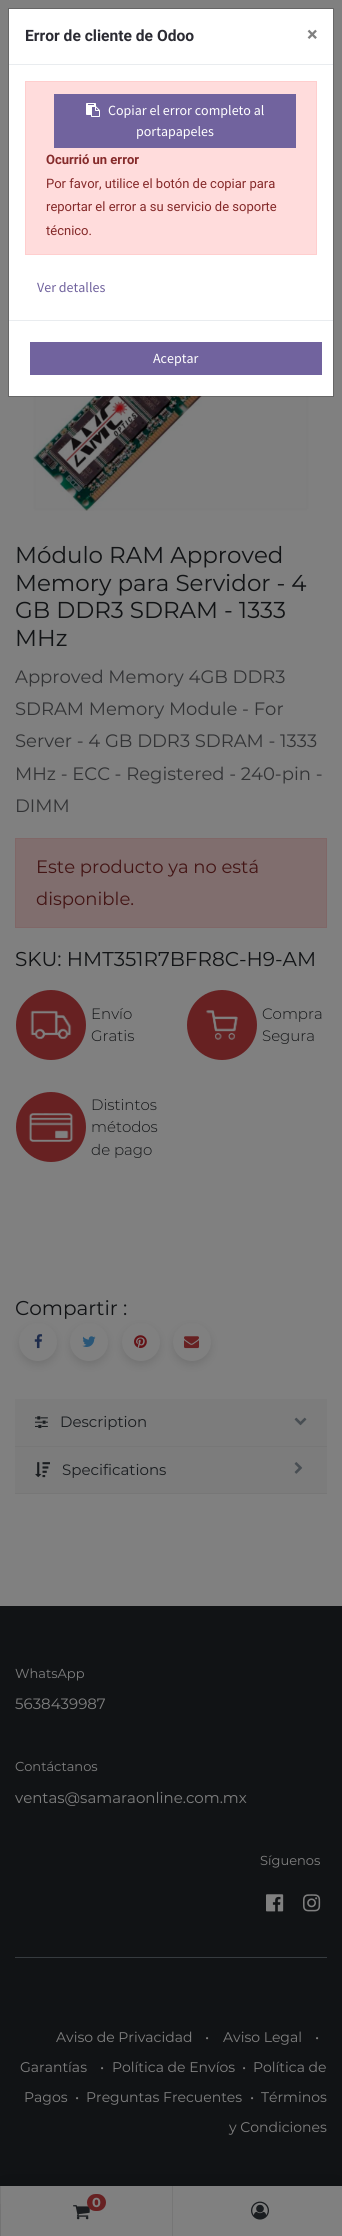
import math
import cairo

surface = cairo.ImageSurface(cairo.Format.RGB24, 342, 2236)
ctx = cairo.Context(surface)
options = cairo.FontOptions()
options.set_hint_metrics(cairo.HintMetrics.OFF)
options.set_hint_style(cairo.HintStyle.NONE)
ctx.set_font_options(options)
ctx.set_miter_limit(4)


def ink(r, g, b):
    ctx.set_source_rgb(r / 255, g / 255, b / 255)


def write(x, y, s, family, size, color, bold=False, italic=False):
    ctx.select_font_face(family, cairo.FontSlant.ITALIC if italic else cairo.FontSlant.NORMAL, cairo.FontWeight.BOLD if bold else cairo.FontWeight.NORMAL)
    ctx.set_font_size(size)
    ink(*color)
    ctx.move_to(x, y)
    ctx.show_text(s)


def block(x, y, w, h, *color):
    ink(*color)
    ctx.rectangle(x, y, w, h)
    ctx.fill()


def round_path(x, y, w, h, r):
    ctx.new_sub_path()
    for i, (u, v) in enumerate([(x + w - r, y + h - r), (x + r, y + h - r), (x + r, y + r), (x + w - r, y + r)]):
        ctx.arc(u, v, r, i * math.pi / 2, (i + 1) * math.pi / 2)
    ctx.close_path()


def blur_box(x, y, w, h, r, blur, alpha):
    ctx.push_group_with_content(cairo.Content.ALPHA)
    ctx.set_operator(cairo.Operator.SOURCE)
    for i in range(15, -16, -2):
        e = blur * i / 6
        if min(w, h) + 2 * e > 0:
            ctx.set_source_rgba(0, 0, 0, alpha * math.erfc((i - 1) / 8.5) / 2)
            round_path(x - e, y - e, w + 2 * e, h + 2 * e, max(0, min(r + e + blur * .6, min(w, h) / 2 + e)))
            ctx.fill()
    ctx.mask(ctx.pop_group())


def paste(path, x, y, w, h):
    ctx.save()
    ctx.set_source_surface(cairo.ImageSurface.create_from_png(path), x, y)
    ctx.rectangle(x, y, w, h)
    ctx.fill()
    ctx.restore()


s1 = dict(family="Roboto", size=15.6, color=(43, 43, 51), bold=True)
s2 = dict(family="Roboto", size=20, color=(128, 128, 128), bold=True)
s3 = dict(family="Source Sans Pro", size=14, color=(255, 255, 255))
s4 = dict(family="Roboto", size=13, color=(133, 42, 42), bold=True)
s5 = dict(family="Roboto", size=13, color=(133, 42, 42))
s6 = dict(family="Source Sans Pro", size=14, color=(113, 99, 158))
s7 = dict(family="Montserrat", size=23, color=(17, 19, 21))
s8 = dict(family="Montserrat", size=18, color=(50, 51, 53))
s9 = dict(family="Montserrat", size=18, color=(67, 21, 21))
s10 = dict(family="Montserrat", size=20, color=(17, 19, 21))
s11 = dict(family="Montserrat Light", size=15, color=(17, 19, 21))
s12 = dict(family="Montserrat", size=15, color=(26, 29, 32))
s13 = dict(family="Montserrat", size=13, color=(128, 128, 128))
s14 = dict(family="Montserrat", size=15, color=(128, 128, 128))
s15 = dict(family="Montserrat", size=14, color=(128, 128, 128))
s16 = dict(family="Montserrat", size=13, color=(128, 128, 128), bold=True)

ink(128, 128, 128)
ctx.paint()
block(9, 9, 324, 387, 255, 255, 255)
paste("pic2.png", 33, 396, 276, 115)
ctx.rectangle(8.5, 8.5, 325, 388)
ctx.set_source_rgba(0, 0, 0, 0.2)
ctx.set_line_width(1)
ctx.stroke()
block(9, 64, 324, 1, 233, 236, 239)
write(25, 41, "Error de cliente de Odoo", **s1)
write(307, 41, "×", **s2)
ink(255, 220, 220)
ctx.rectangle(25.5, 81.5, 291, 173)
ctx.fill_preserve()
ink(255, 206, 206)
ctx.stroke()
block(54, 94, 242, 54, 113, 99, 158)
paste("pic1.png", 86, 103, 14, 14)
write(108, 115, "Copiar el error completo al", **s3)
write(136, 136, "portapapeles", **s3)
write(46, 164, "Ocurrió un error", **s4)
write(46, 188, "Por favor, utilice el botón de copiar para", **s5)
write(46, 211, "reportar el error a su servicio de soporte", **s5)
write(46, 235, "técnico.", **s5)
write(37, 292, "Ver detalles", **s6)
block(9, 320, 324, 1, 233, 236, 239)
block(30, 342, 292, 33, 113, 99, 158)
write(153, 363, "Aceptar", **s3)
write(15, 563, "Módulo RAM Approved", **s7)
write(15, 591, "Memory para Servidor - 4", **s7)
write(15, 618, "GB DDR3 SDRAM - 1333", **s7)
write(15, 646, "MHz", **s7)
write(15, 683, "Approved Memory 4GB DDR3", **s8)
write(15, 715, "SDRAM Memory Module - For", **s8)
write(15, 747, "Server - 4 GB DDR3 SDRAM - 1333", **s8)
write(15, 780, "MHz - ECC - Registered - 240-pin -", **s8)
write(15, 812, "DIMM", **s8)
ink(128, 110, 110)
ctx.rectangle(15.5, 838.5, 311, 89)
ctx.fill_preserve()
ink(128, 103, 103)
ctx.stroke()
write(36, 873, "Este producto ya no está", **s9)
write(36, 905, "disponible.", **s9)
write(15, 966, "SKU: HMT351R7BFR8C-H9-AM", **s10)
ink(103, 33, 34)
ctx.new_path()
ctx.arc(51, 1025, 35, 0, 2 * math.pi)
ctx.fill()
paste("pic3.png", 30, 1010, 42, 30)
write(91, 1019, "Envío", **s11)
write(91, 1041, "Gratis", **s11)
ink(103, 33, 34)
ctx.new_path()
ctx.arc(222, 1025, 35, 0, 2 * math.pi)
ctx.fill()
paste("pic4.png", 206, 1010, 32, 30)
write(262, 1019, "Compra", **s11)
write(262, 1041, "Segura", **s11)
ink(103, 33, 34)
ctx.new_path()
ctx.arc(51, 1127, 35, 0, 2 * math.pi)
ctx.fill()
paste("pic5.png", 28, 1113, 46, 29)
write(91, 1110, "Distintos", **s11)
write(91, 1132, "métodos", **s11)
write(91, 1155, "de pago", **s11)
write(15, 1315, "Compartir :", **s10)
ink(0, 0, 0)
blur_box(19, 1327, 38, 38, 19, 4, 0.1)
ink(128, 128, 128)
ctx.arc(38, 1342, 19, 0, 2 * math.pi)
ctx.fill()
paste("pic6.png", 34, 1334, 9, 15)
ink(0, 0, 0)
blur_box(70, 1327, 38, 38, 19, 4, 0.1)
ink(128, 128, 128)
ctx.arc(89, 1342, 19, 0, 2 * math.pi)
ctx.fill()
paste("pic7.png", 82, 1336, 14, 11)
ink(0, 0, 0)
blur_box(122, 1327, 38, 38, 19, 4, 0.1)
ink(128, 128, 128)
ctx.arc(141, 1342, 19, 0, 2 * math.pi)
ctx.fill()
paste("pic8.png", 134, 1335, 13, 14)
ink(0, 0, 0)
blur_box(173, 1327, 38, 38, 19, 4, 0.1)
ink(128, 128, 128)
ctx.arc(192, 1342, 19, 0, 2 * math.pi)
ctx.fill()
paste("pic9.png", 184, 1336, 15, 13)
block(15, 1399, 312, 47, 124, 124, 124)
block(15, 1446, 312, 1, 119, 119, 119)
paste("pic10.png", 35, 1416, 13, 13)
write(60, 1427, "Description", **s12)
paste("pic11.png", 294, 1417, 13, 9)
block(15, 1447, 312, 46, 124, 124, 124)
block(15, 1493, 312, 1, 119, 119, 119)
paste("pic12.png", 35, 1462, 15, 16)
write(62, 1475, "Specifications", **s12)
paste("pic13.png", 294, 1462, 9, 12)
block(0, 1606, 342, 580, 17, 19, 21)
write(15, 1678, "WhatsApp", **s13)
write(15, 1709, "5638439987", **s14)
write(15, 1771, "Contáctanos", **s13)
write(15, 1803, "ventas@samaraonline.com.mx", **s14)
write(260, 1865, "Síguenos", **s13)
paste("pic14.png", 266, 1894, 18, 18)
paste("pic15.png", 303, 1894, 18, 18)
block(15, 1957, 312, 1, 54, 59, 63)
write(56, 2042, "Aviso de Privacidad", **s15)
write(205, 2042, "•", **s15)
write(223, 2042, "Aviso Legal", **s15)
write(315, 2042, "•", **s15)
write(20, 2072, "Garantías", **s15)
write(100, 2072, "•", **s15)
write(112, 2072, "Política de Envíos", **s15)
write(242, 2072, "•", **s15)
write(253, 2072, "Política de", **s15)
write(24, 2102, "Pagos", **s15)
write(75, 2102, "•", **s15)
write(86, 2102, "Preguntas Frecuentes", **s15)
write(250, 2102, "•", **s15)
write(261, 2102, "Términos", **s15)
write(229, 2132, "y Condiciones", **s15)
ink(0, 0, 0)
blur_box(-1, 2200, 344, 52, 0, 22.5, 0.2)
block(1, 2186, 341, 50, 128, 128, 128)
block(0, 2186, 1, 18, 118, 118, 118)
paste("pic16.png", 73, 2205, 17, 15)
ink(103, 33, 34)
round_path(87, 2194, 19, 17, 8.5)
ctx.fill()
write(92, 2207, "0", **s16)
block(172, 2186, 1, 50, 118, 118, 118)
paste("pic17.png", 251, 2201, 18, 19)
surface.write_to_png("screenshot.png")
